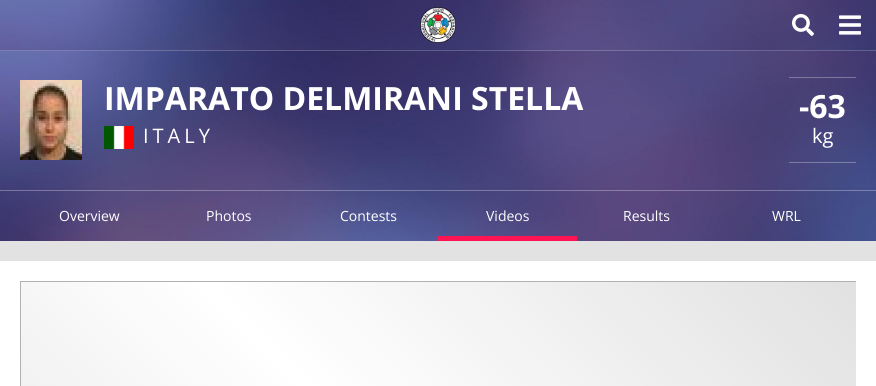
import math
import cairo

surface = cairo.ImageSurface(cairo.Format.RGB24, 876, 386)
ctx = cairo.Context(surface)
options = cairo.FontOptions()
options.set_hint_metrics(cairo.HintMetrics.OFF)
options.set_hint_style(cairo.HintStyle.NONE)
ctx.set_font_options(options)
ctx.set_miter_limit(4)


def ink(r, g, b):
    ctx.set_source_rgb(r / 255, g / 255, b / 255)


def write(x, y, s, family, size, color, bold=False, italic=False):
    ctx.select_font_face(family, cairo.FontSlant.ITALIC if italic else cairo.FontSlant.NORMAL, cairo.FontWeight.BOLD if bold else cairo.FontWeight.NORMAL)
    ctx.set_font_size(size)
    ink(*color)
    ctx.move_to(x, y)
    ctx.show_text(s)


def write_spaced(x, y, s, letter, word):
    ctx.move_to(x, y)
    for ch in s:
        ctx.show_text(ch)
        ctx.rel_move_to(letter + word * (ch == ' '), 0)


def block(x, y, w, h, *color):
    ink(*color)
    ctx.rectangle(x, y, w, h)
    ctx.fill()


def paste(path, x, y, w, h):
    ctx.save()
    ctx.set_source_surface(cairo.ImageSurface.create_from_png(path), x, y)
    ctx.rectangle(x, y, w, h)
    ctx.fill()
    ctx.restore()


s1 = dict(family="Open Sans", size=32, color=(255, 255, 255), bold=True)
s2 = dict(family="Open Sans", size=20, color=(255, 255, 255))
s3 = dict(family="Open Sans", size=14, color=(255, 255, 255))

ink(226, 226, 226)
ctx.paint()
paste("pic1.png", 0, 0, 876, 51)
ctx.set_source_rgba(1, 1, 1, 0.2)
ctx.rectangle(0, 50, 876, 1)
ctx.fill()
paste("pic2.png", 420, 7, 36, 36)
paste("pic3.png", 792, 14, 22, 22)
paste("pic4.png", 839, 15, 22, 20)
paste("pic5.png", 0, 51, 876, 190)
paste("pic6.png", 20, 80, 62, 80)
write(104, 110, "IMPARATO DELMIRANI STELLA", **s1)
paste("pic7.png", 104, 126, 30, 23)
ctx.select_font_face("Open Sans")
ctx.set_font_size(20)
write_spaced(143, 143, "ITALY", 4, 0)
ctx.set_source_rgba(1, 1, 1, 0.3)
ctx.rectangle(789, 77, 67, 1)
ctx.fill()
ctx.rectangle(789, 162, 67, 1)
ctx.fill()
write(799, 118, "-63", **s1)
write(812, 143, "kg", **s2)
ctx.set_source_rgba(1, 1, 1, 0.3)
ctx.rectangle(0, 190, 876, 1)
ctx.fill()
write(59, 221, "Overview", **s3)
write(206, 221, "Photos", **s3)
write(340, 221, "Contests", **s3)
write(486, 221, "Videos", **s3)
block(438, 236, 139, 5, 255, 21, 83)
write(623, 221, "Results", **s3)
write(772, 221, "WRL", **s3)
block(0, 261, 876, 125, 255, 255, 255)
paste("pic8.png", 20, 281, 836, 105)
surface.write_to_png("screenshot.png")
